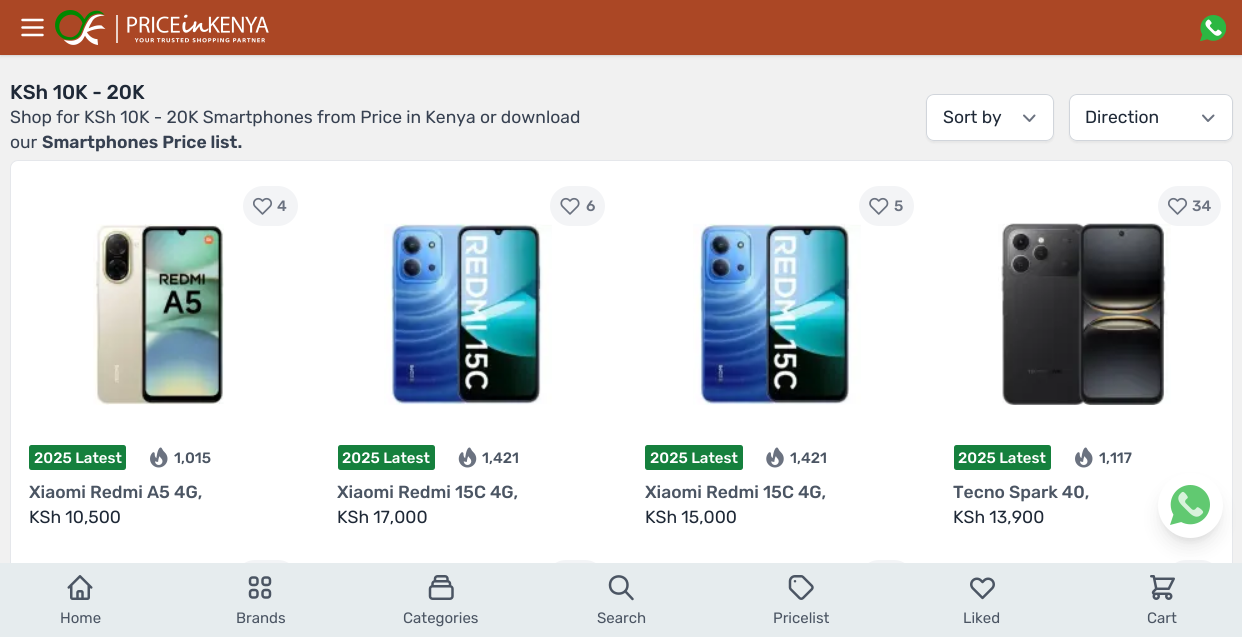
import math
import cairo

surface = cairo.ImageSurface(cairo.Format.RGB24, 1242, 637)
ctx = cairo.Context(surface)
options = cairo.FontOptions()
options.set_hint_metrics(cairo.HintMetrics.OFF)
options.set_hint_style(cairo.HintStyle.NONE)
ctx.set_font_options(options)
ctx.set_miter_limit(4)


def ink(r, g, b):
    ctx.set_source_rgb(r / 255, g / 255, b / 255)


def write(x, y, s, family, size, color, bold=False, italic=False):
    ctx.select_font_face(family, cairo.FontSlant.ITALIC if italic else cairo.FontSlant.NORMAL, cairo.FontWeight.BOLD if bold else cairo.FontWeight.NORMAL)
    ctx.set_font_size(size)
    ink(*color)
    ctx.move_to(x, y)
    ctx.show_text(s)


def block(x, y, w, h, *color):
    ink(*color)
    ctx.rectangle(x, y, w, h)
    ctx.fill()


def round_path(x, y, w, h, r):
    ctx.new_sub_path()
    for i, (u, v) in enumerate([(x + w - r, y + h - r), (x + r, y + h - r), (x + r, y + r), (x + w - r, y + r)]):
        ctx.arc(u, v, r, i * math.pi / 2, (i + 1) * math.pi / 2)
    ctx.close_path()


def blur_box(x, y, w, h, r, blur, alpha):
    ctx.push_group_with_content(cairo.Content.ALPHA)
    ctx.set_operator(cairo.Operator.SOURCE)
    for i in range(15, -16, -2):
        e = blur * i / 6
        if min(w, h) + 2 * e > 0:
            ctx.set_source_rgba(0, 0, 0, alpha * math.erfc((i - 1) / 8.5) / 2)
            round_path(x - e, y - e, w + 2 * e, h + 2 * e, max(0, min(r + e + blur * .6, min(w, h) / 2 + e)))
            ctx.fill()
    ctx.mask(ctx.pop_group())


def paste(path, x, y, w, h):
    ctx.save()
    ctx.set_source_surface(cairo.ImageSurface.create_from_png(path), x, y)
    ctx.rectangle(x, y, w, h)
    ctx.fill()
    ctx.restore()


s1 = dict(family="Rubik Medium", size=20, color=(31, 41, 55))
s2 = dict(family="Rubik", size=17.5, color=(55, 65, 81))
s3 = dict(family="Rubik SemiBold", size=17.5, color=(55, 65, 81))
s4 = dict(family="Rubik", size=17.5, color=(31, 41, 55))
s5 = dict(family="Rubik Medium", size=15, color=(107, 114, 128))
s6 = dict(family="Rubik Medium", size=15, color=(255, 255, 255))
s7 = dict(family="Rubik Medium", size=15, color=(75, 85, 99))
s8 = dict(family="Rubik Medium", size=17.5, color=(75, 85, 99))
s9 = dict(family="Rubik", size=15, color=(75, 85, 99))

ink(241, 241, 241)
ctx.paint()
ink(0, 0, 0)
blur_box(1, 3, 1240, 52, 0, 1, 0.1)
blur_box(0, 1, 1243, 55, 0, 2, 0.1)
block(0, 0, 1242, 55, 171, 71, 37)
ctx.new_path()
ctx.move_to(22.5, 20)
ctx.line_to(42.5, 20)
ctx.move_to(22.5, 27.5)
ctx.line_to(42.5, 27.5)
ctx.move_to(22.5, 35)
ctx.line_to(42.5, 35)
ink(255, 255, 255)
ctx.set_line_width(2.5)
ctx.set_line_cap(cairo.LineCap.ROUND)
ctx.set_line_join(cairo.LineJoin.ROUND)
ctx.stroke()
paste("pic1.png", 55, 10, 214, 35)
paste("pic2.png", 1200, 15, 26, 26)
write(10, 99, "KSh 10K - 20K", **s1)
write(10, 123, "Shop for KSh 10K - 20K Smartphones from Price in Kenya or download", **s2)
write(10, 148, "our", **s2)
write(42, 148, "Smartphones Price list.", **s3)
ink(0, 0, 0)
blur_box(926, 95, 128, 48, 8, 1, 0.05)
ink(255, 255, 255)
round_path(926, 94, 128, 47, 8)
ctx.fill()
ctx.new_path()
ctx.move_to(1024, 115.5)
ctx.line_to(1029.5, 121)
ctx.line_to(1034.5, 115.5)
ink(107, 114, 128)
ctx.set_line_width(2)
ctx.stroke()
round_path(926.5, 94.5, 127, 46, 7.5)
ink(209, 213, 219)
ctx.set_line_width(1)
ctx.set_line_cap(cairo.LineCap.BUTT)
ctx.set_line_join(cairo.LineJoin.MITER)
ctx.stroke()
write(943, 123, "Sort by", **s4)
ink(0, 0, 0)
blur_box(1069, 95, 164, 48, 8, 1, 0.05)
ink(255, 255, 255)
round_path(1069, 94, 164, 47, 8)
ctx.fill()
ctx.new_path()
ctx.move_to(1203, 115.5)
ctx.line_to(1208, 121)
ctx.line_to(1213.5, 115.5)
ink(107, 114, 128)
ctx.set_line_width(2)
ctx.set_line_cap(cairo.LineCap.ROUND)
ctx.set_line_join(cairo.LineJoin.ROUND)
ctx.stroke()
round_path(1069.5, 94.5, 163, 46, 7.5)
ink(209, 213, 219)
ctx.set_line_width(1)
ctx.set_line_cap(cairo.LineCap.BUTT)
ctx.set_line_join(cairo.LineJoin.MITER)
ctx.stroke()
write(1085, 123, "Direction", **s4)
ink(255, 255, 255)
round_path(10.5, 160.5, 1222, 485, 7.5)
ctx.fill_preserve()
ink(229, 231, 235)
ctx.stroke()
ink(243, 244, 246)
round_path(243, 186, 55, 40, 20)
ctx.fill()
paste("pic3.png", 253, 197, 20, 18)
write(277, 211, "4", **s5)
paste("pic4.png", 93, 224, 131, 181)
ink(21, 128, 61)
round_path(29, 445, 97, 25, 2.5)
ctx.fill()
write(34, 463, "2025 Latest", **s6)
paste("pic5.png", 150, 447, 18, 21)
write(174, 463, "1,015", **s7)
write(29, 498, "Xiaomi Redmi A5 4G,", **s8)
write(29, 523, "KSh 10,500", **s4)
paste("pic7.png", 384, 223, 168, 182)
ink(243, 244, 246)
round_path(550, 186, 55, 40, 20)
ctx.fill()
paste("pic6.png", 560, 197, 20, 18)
write(586, 211, "6", **s5)
ink(21, 128, 61)
round_path(338, 445, 97, 25, 2.5)
ctx.fill()
write(342, 463, "2025 Latest", **s6)
paste("pic8.png", 458, 447, 19, 21)
write(482, 463, "1,421", **s7)
write(337, 498, "Xiaomi Redmi 15C 4G,", **s8)
write(337, 523, "KSh 17,000", **s4)
paste("pic10.png", 693, 223, 168, 182)
ink(243, 244, 246)
round_path(859, 186, 55, 40, 20)
ctx.fill()
paste("pic9.png", 869, 197, 20, 18)
write(894, 211, "5", **s5)
ink(21, 128, 61)
round_path(645, 445, 98, 25, 2.5)
ctx.fill()
write(650, 463, "2025 Latest", **s6)
paste("pic11.png", 766, 447, 18, 21)
write(790, 463, "1,421", **s7)
write(645, 498, "Xiaomi Redmi 15C 4G,", **s8)
write(645, 523, "KSh 15,000", **s4)
paste("pic12.png", 998, 223, 173, 182)
ink(243, 244, 246)
round_path(1158, 186, 63, 40, 20)
ctx.fill()
paste("pic3.png", 1168, 197, 20, 18)
write(1192, 211, "34", **s5)
ink(21, 128, 61)
round_path(954, 445, 97, 25, 2.5)
ctx.fill()
write(958, 463, "2025 Latest", **s6)
paste("pic5.png", 1075, 447, 18, 21)
write(1099, 463, "1,117", **s7)
write(953, 498, "Tecno Spark 40,", **s8)
write(953, 523, "KSh 13,900", **s4)
ink(243, 244, 246)
round_path(235, 560, 63, 40, 20)
ctx.fill()
round_path(546, 560, 59, 40, 20)
ctx.fill()
round_path(859, 560, 55, 40, 20)
ctx.fill()
round_path(1166, 560, 55, 40, 20)
ctx.fill()
ink(0, 0, 0)
blur_box(1163, 483, 55, 55, 27.5, 4, 0.1)
blur_box(1161, 489, 58, 57, 28.5, 9.5, 0.1)
ink(255, 255, 255)
ctx.arc(1190.5, 505.5, 32.5, 0, 2 * math.pi)
ctx.fill()
paste("pic13.png", 1170, 485, 40, 40)
block(0, 563, 1242, 74, 230, 236, 238)
paste("pic14.png", 67, 575, 26, 25)
write(60, 623, "Home", **s9)
paste("pic15.png", 248, 576, 24, 23)
write(236, 623, "Brands", **s9)
paste("pic16.png", 428, 575, 26, 25)
write(403, 623, "Categories", **s9)
ctx.new_path()
ctx.move_to(632.5, 599)
ctx.line_to(625, 591)
ctx.move_to(627.5, 585)
ctx.curve_to(627.5, 596.5, 610, 596.5, 610, 585)
ctx.curve_to(610, 573.5, 627.5, 573.5, 627.5, 585)
ctx.close_path()
ctx.set_line_width(2.5)
ctx.set_line_cap(cairo.LineCap.ROUND)
ctx.set_line_join(cairo.LineJoin.ROUND)
ctx.stroke()
write(597, 623, "Search", **s9)
paste("pic17.png", 788, 575, 26, 25)
write(773, 623, "Pricelist", **s9)
paste("pic18.png", 970, 577, 25, 23)
write(963, 623, "Liked", **s9)
paste("pic19.png", 1150, 575, 25, 25)
write(1147, 623, "Cart", **s9)
surface.write_to_png("screenshot.png")
